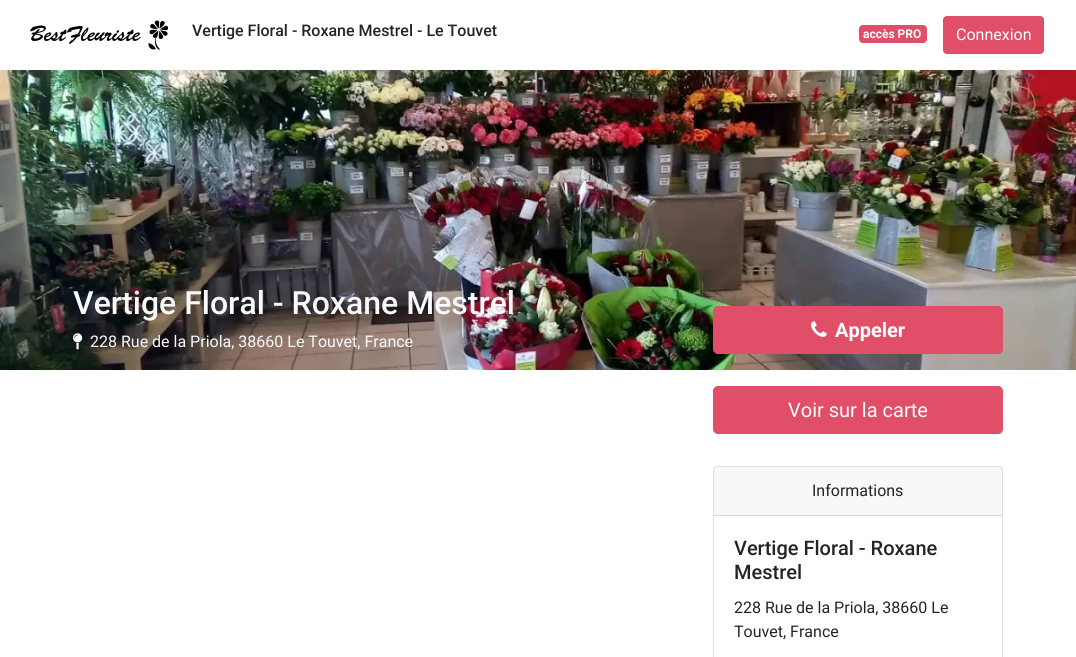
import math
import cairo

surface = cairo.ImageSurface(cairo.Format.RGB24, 1076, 657)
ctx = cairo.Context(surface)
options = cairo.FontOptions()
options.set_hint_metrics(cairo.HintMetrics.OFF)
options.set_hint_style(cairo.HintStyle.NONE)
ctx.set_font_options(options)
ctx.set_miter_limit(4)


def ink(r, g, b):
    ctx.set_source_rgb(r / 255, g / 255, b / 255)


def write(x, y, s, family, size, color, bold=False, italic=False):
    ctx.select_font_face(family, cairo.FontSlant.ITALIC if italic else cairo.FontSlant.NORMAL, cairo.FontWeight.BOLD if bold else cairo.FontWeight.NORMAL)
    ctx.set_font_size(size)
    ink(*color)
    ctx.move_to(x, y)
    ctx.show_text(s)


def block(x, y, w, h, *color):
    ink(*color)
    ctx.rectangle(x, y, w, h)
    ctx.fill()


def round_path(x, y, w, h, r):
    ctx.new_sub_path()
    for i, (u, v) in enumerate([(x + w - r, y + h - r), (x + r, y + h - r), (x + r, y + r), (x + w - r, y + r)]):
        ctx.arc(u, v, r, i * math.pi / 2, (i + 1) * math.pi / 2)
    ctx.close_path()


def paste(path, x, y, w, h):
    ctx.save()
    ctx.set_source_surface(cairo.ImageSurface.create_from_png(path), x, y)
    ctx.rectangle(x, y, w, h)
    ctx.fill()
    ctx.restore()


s1 = dict(family="Roboto Medium", size=16, color=(33, 37, 41))
s2 = dict(family="Roboto", size=12, color=(255, 255, 255), bold=True)
s3 = dict(family="Roboto", size=16, color=(255, 255, 255))
s4 = dict(family="Roboto Medium", size=32, color=(248, 249, 250))
s5 = dict(family="Roboto", size=16, color=(248, 249, 250))
s6 = dict(family="Roboto", size=20, color=(255, 255, 255), bold=True)
s7 = dict(family="Roboto", size=20, color=(255, 255, 255))
s8 = dict(family="Roboto", size=16, color=(33, 37, 41))
s9 = dict(family="Roboto Medium", size=20, color=(33, 37, 41))

ink(255, 255, 255)
ctx.paint()
paste("pic1.png", 30, 20, 138, 30)
write(192, 36, "Vertige Floral - Roxane Mestrel - Le Touvet", **s1)
ink(224, 79, 103)
round_path(859, 25, 68, 18, 4)
ctx.fill()
write(863, 38, "accès PRO", **s2)
ink(224, 79, 103)
round_path(943.5, 16.5, 100, 37, 3.5)
ctx.fill_preserve()
ctx.set_line_width(1)
ctx.stroke()
write(956, 40, "Connexion", **s3)
paste("pic2.png", 0, 70, 1076, 300)
write(73, 314, "Vertige Floral - Roxane Mestrel", **s4)
paste("pic3.png", 73, 333, 10, 17)
write(90, 347, "228 Rue de la Priola, 38660 Le Touvet, France", **s5)
ink(224, 79, 103)
round_path(713.5, 306.5, 289, 47, 4.5)
ctx.fill_preserve()
ctx.stroke()
paste("pic4.png", 811, 321, 16, 16)
write(835, 337, "Appeler", **s6)
ink(224, 79, 103)
round_path(713.5, 386.5, 289, 47, 4.5)
ctx.fill_preserve()
ctx.stroke()
write(788, 417, "Voir sur la carte", **s7)
round_path(713.5, 466.5, 289, 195, 3.5)
ink(223, 223, 223)
ctx.stroke()
ctx.set_source_rgba(0, 0, 0, 0.03)
ctx.rectangle(714, 467, 288, 48)
ctx.fill()
block(714, 515, 288, 1, 216, 216, 216)
write(812, 496, "Informations", **s8)
write(734, 555, "Vertige Floral - Roxane", **s9)
write(734, 579, "Mestrel", **s9)
write(734, 613, "228 Rue de la Priola, 38660 Le", **s8)
write(734, 637, "Touvet, France", **s8)
surface.write_to_png("screenshot.png")
